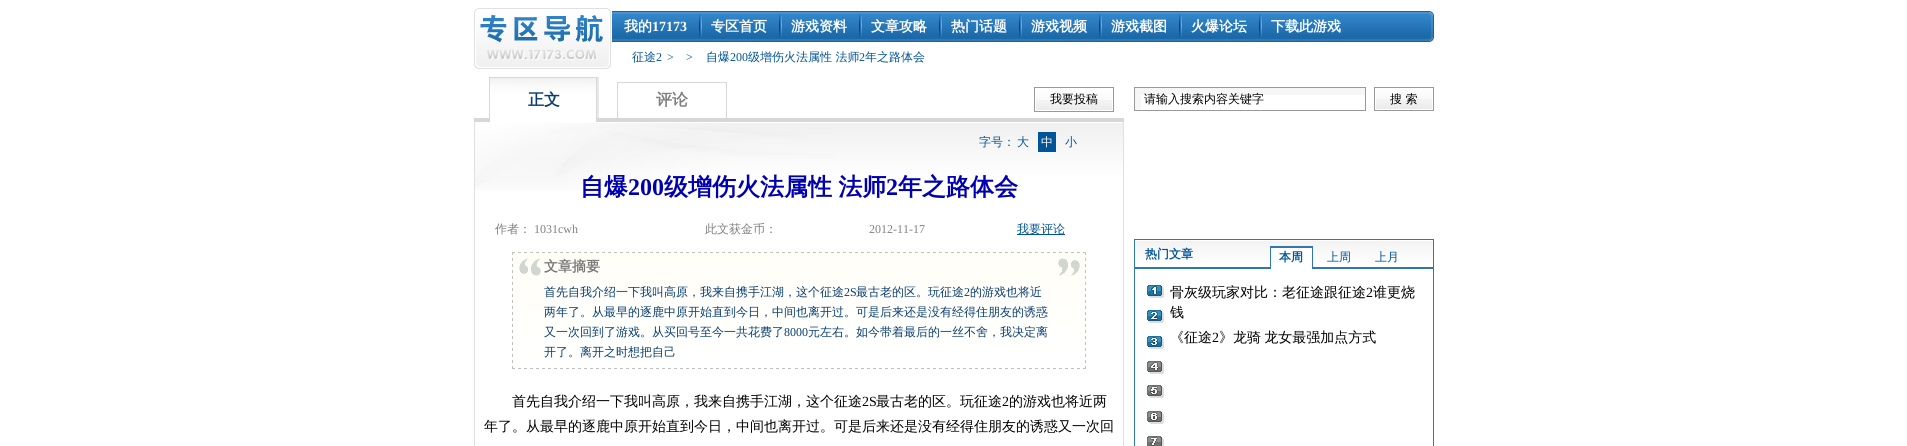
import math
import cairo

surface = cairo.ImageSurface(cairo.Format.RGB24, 1907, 446)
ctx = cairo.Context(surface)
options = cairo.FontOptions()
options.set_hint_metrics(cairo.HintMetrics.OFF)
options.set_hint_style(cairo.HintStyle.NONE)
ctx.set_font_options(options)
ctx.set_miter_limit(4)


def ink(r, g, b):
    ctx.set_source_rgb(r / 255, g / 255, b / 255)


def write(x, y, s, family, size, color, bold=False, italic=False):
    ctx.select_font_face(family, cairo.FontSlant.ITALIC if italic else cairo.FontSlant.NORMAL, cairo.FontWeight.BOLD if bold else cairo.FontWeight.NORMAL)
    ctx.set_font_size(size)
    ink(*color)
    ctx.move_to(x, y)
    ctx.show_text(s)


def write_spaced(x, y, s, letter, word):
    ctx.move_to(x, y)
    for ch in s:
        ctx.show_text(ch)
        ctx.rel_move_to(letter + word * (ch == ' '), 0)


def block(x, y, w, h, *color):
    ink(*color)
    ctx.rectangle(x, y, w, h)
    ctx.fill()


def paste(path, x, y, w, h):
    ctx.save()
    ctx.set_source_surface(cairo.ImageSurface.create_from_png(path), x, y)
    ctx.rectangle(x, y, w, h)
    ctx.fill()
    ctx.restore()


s1 = dict(family="WenQuanYi Zen Hei", size=14, color=(255, 255, 255), bold=True)
s2 = dict(family="Liberation Serif", size=14, color=(255, 255, 255), bold=True)
s3 = dict(family="WenQuanYi Zen Hei Medium", size=12, color=(0, 84, 153))
s4 = dict(family="Liberation Serif", size=12, color=(0, 84, 153))
s5 = dict(family="WenQuanYi Zen Hei", size=16, color=(9, 61, 114), bold=True)
s6 = dict(family="WenQuanYi Zen Hei", size=16, color=(128, 128, 128), bold=True)
s7 = dict(family="WenQuanYi Zen Hei Medium", size=12, color=(0, 0, 0))
s8 = dict(family="WenQuanYi Zen Hei Medium", size=12, color=(255, 255, 255))
s9 = dict(family="WenQuanYi Zen Hei", size=24, color=(0, 0, 176), bold=True)
s10 = dict(family="Liberation Serif", size=24, color=(0, 0, 176), bold=True)
s11 = dict(family="WenQuanYi Zen Hei Medium", size=12, color=(128, 128, 128))
s12 = dict(family="Liberation Serif", size=12, color=(128, 128, 128))
s13 = dict(family="WenQuanYi Zen Hei", size=14, color=(122, 122, 122), bold=True)
s14 = dict(family="WenQuanYi Zen Hei Medium", size=12, color=(9, 61, 114))
s15 = dict(family="Liberation Serif", size=12, color=(9, 61, 114))
s16 = dict(family="WenQuanYi Zen Hei Medium", size=14, color=(0, 0, 0))
s17 = dict(family="Liberation Serif", size=14, color=(0, 0, 0))
s18 = dict(family="WenQuanYi Zen Hei", size=12, color=(0, 84, 153), bold=True)

ink(255, 255, 255)
ctx.paint()
paste("pic1.png", 474, 8, 137, 61)
paste("pic2.png", 612, 11, 822, 31)
write(624, 31, "我的", **s1)
write(652, 31, "17173", **s2)
paste("pic3.png", 699, 14, 3, 23)
write(711, 31, "专区首页", **s1)
paste("pic4.png", 779, 14, 3, 23)
write(791, 31, "游戏资料", **s1)
paste("pic4.png", 859, 14, 3, 23)
write(871, 31, "文章攻略", **s1)
paste("pic3.png", 939, 14, 3, 23)
write(951, 31, "热门话题", **s1)
paste("pic3.png", 1019, 14, 3, 23)
write(1031, 31, "游戏视频", **s1)
paste("pic4.png", 1099, 14, 3, 23)
write(1111, 31, "游戏截图", **s1)
paste("pic4.png", 1179, 14, 3, 23)
write(1191, 31, "火爆论坛", **s1)
paste("pic3.png", 1259, 14, 3, 23)
write(1271, 31, "下载此游戏", **s1)
write(632, 61, "征途", **s3)
write(656, 61, "2", **s4)
write(667, 61, ">", **s4)
write(686, 61, ">", **s4)
write(706, 61, "自爆", **s3)
write(730, 61, "200", **s4)
write(748, 61, "级增伤火法属性 法师", **s3)
write(859, 61, "2", **s4)
write(865, 61, "年之路体会", **s3)
paste("pic5.png", 474, 77, 650, 45)
write(528, 105, "正文", **s5)
write(656, 105, "评论", **s6)
paste("pic6.png", 1034, 87, 80, 25)
write(1050, 103, "我要投稿", **s7)
paste("pic7.png", 475, 123, 648, 67)
block(1123, 122, 1, 324, 224, 224, 224)
block(474, 122, 1, 324, 224, 224, 224)
write(979, 146, "字号：", **s3)
write(1017, 146, "大", **s3)
block(1038, 132, 18, 20, 0, 84, 153)
write(1041, 146, "中", **s8)
write(1065, 146, "小", **s3)
write(580, 195, "自爆", **s9)
write(628, 195, "200", **s10)
ctx.select_font_face("WenQuanYi Zen Hei", cairo.FontSlant.NORMAL, cairo.FontWeight.BOLD)
write_spaced(664, 195, "级增伤火法属性 法师", 0, -1)
write(886, 195, "2", **s10)
write(898, 195, "年之路体会", **s9)
write(495, 233, "作者：", **s11)
write(534, 233, "1031cwh", **s12)
write(705, 233, "此文获金币：", **s11)
write(869, 233, "2012-11-17", **s12)
block(1017, 234, 48, 1, 0, 84, 153)
write(1017, 233, "我要评论", **s3)
paste("pic8.png", 512, 252, 574, 117)
write(544, 271, "文章摘要", **s13)
write(544, 296, "首先自我介绍一下我叫高原，我来自携手江湖，这个征途", **s14)
write(844, 296, "2S", **s15)
write(856, 296, "最古老的区。玩征途", **s14)
write(964, 296, "2", **s15)
write(970, 296, "的游戏也将近", **s14)
write(544, 316, "两年了。从最早的逐鹿中原开始直到今日，中间也离开过。可是后来还是没有经得住朋友的诱惑", **s14)
write(544, 336, "又一次回到了游戏。从买回号至今一共花费了", **s14)
write(784, 336, "8000", **s15)
write(808, 336, "元左右。如今带着最后的一丝不舍，我决定离", **s14)
write(544, 356, "开了。离开之时想把自己", **s14)
write(512, 406, "首先自我介绍一下我叫高原，我来自携手江湖，这个征途", **s16)
write(862, 406, "2S", **s17)
write(876, 406, "最古老的区。玩征途", **s16)
write(1002, 406, "2", **s17)
write(1009, 406, "的游戏也将近两", **s16)
write(484, 431, "年了。从最早的逐鹿中原开始直到今日，中间也离开过。可是后来还是没有经得住朋友的诱惑又一次回", **s16)
paste("pic9.png", 1134, 87, 300, 24)
write(1144, 103, "请输入搜索内容关键字", **s7)
write(1390, 103, "搜 索", **s7)
paste("pic10.png", 1135, 241, 298, 28)
ctx.rectangle(1134.5, 239.5, 299, 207)
ink(49, 119, 176)
ctx.set_line_width(1)
ctx.stroke()
write(1145, 258, "热门文章", **s18)
paste("pic11.png", 1270, 246, 43, 23)
write(1279, 261, "本周", **s18)
write(1327, 261, "上周", **s3)
write(1375, 261, "上月", **s3)
paste("pic12.png", 1147, 285, 17, 161)
write(1170, 297, "骨灰级玩家对比：老征途跟征途", **s16)
write(1366, 297, "2", **s17)
write(1373, 297, "谁更烧", **s16)
write(1170, 317, "钱", **s16)
write(1170, 342, "《征途", **s16)
write(1212, 342, "2", **s17)
ctx.select_font_face("WenQuanYi Zen Hei Medium")
write_spaced(1219, 342, "》龙骑 龙女最强加点方式", 0, -1)
surface.write_to_png("screenshot.png")
